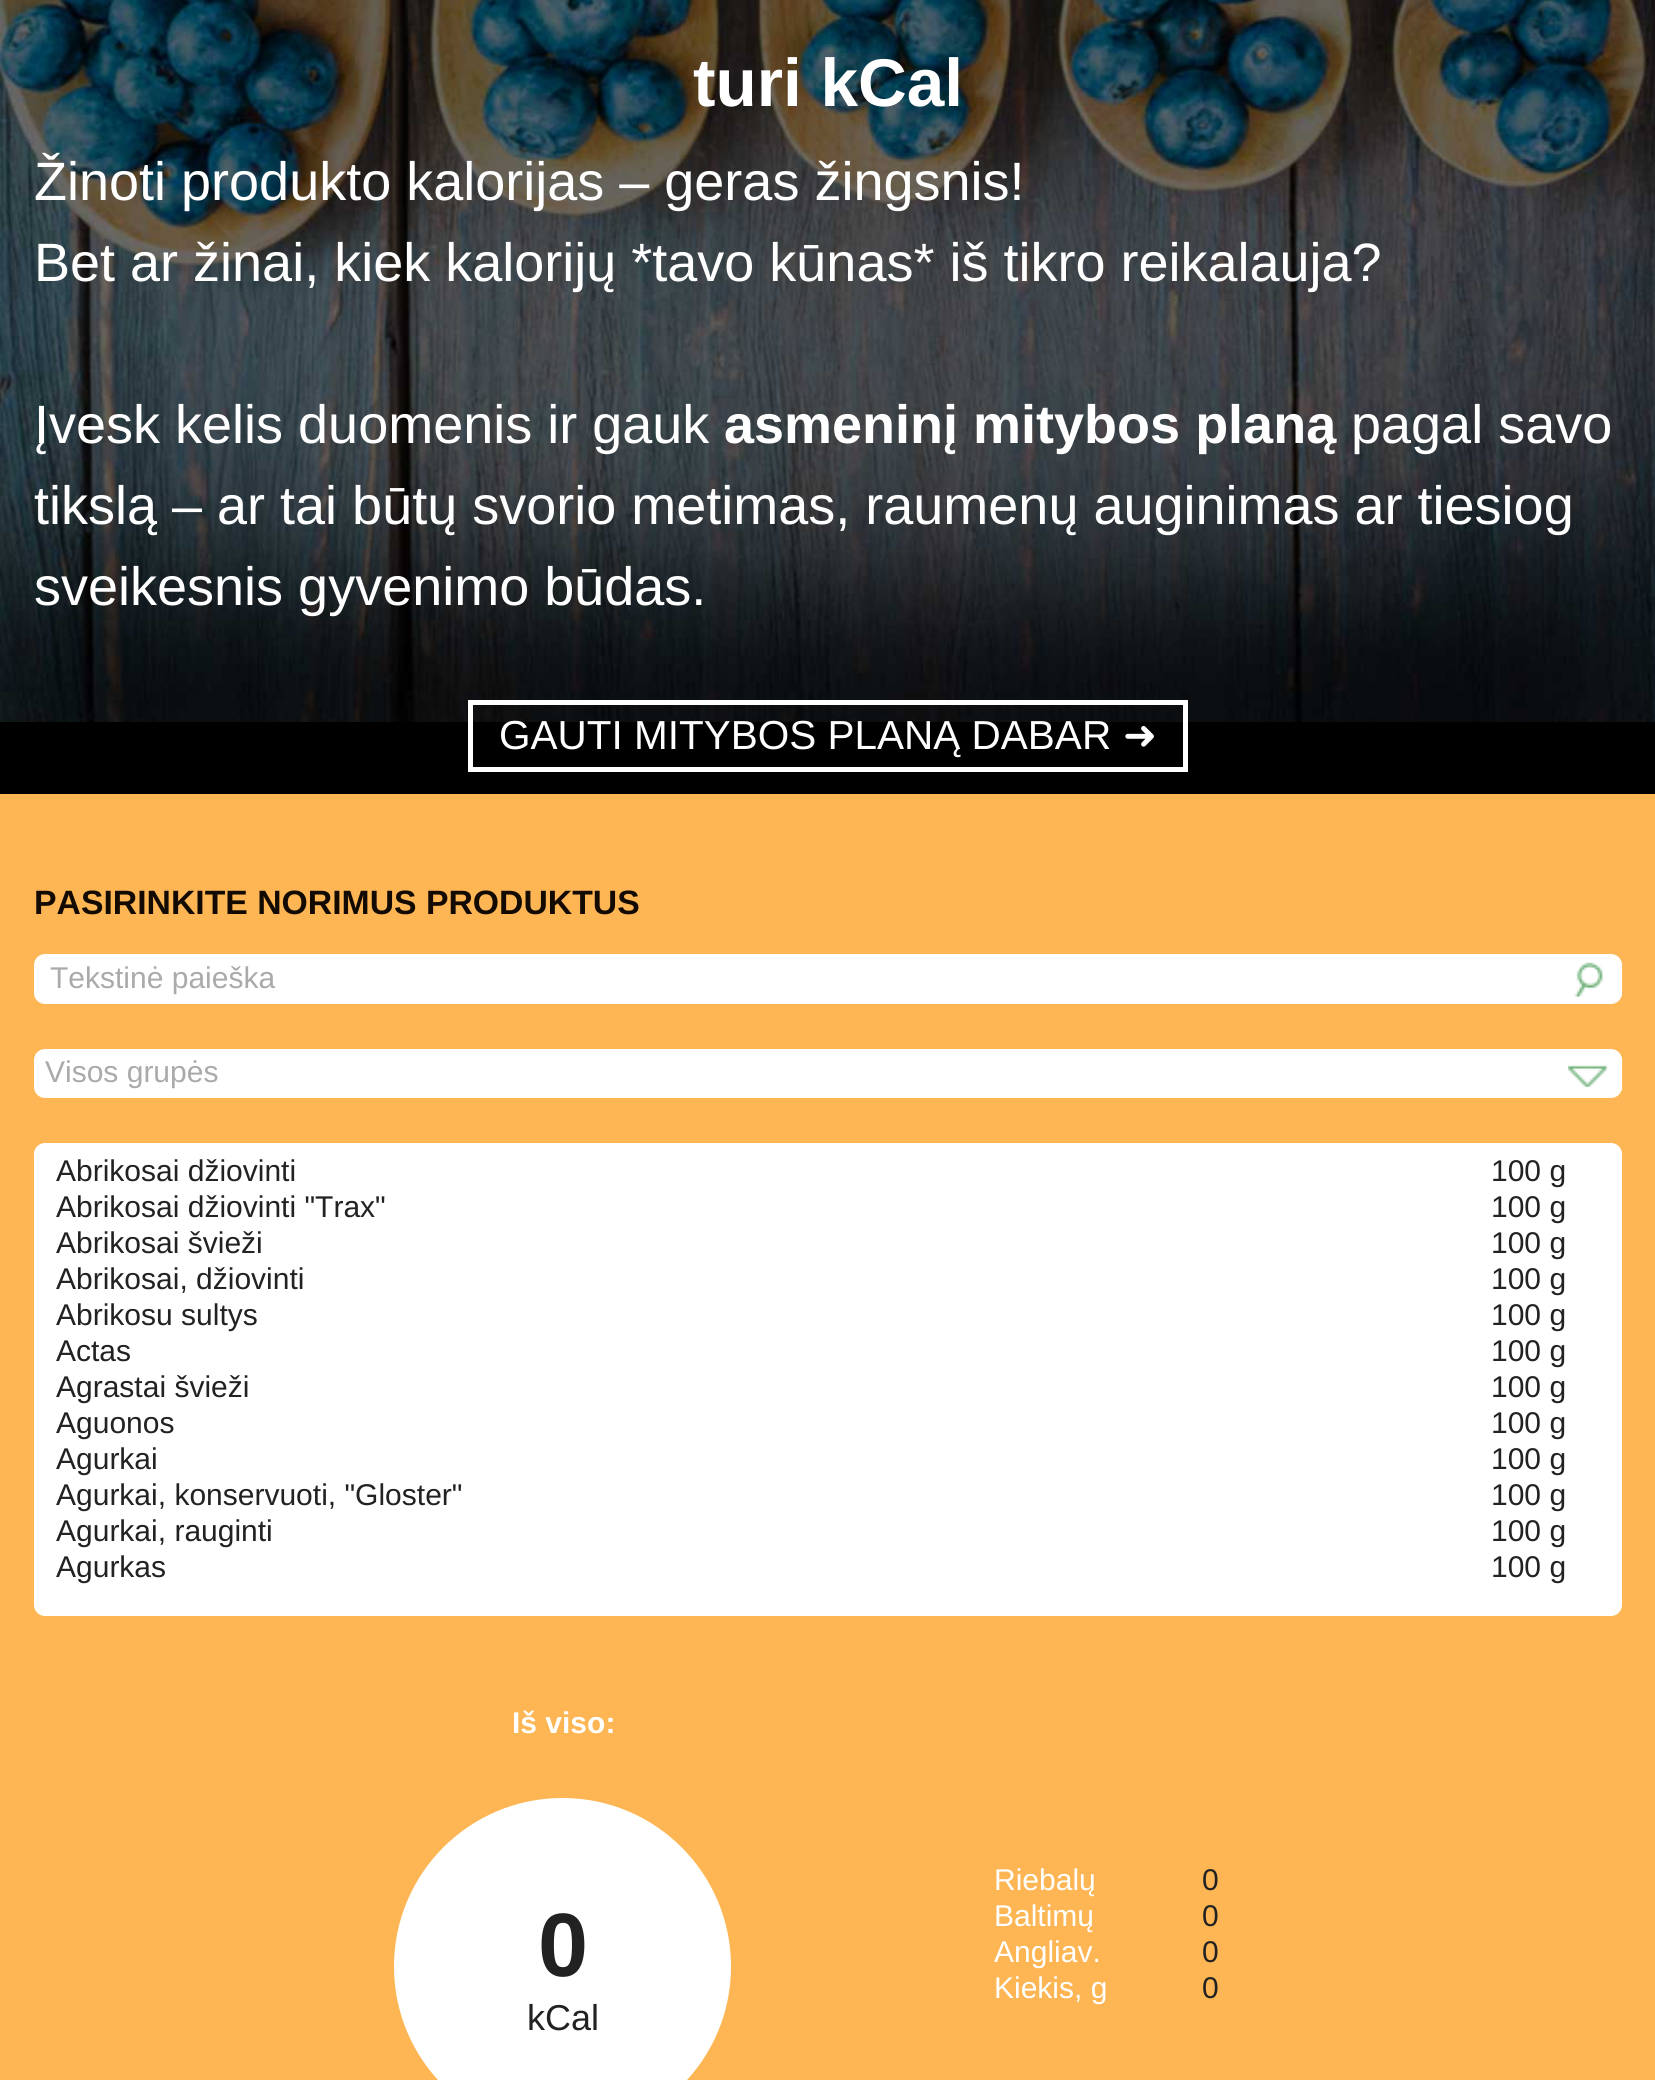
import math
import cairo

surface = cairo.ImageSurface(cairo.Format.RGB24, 1655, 2080)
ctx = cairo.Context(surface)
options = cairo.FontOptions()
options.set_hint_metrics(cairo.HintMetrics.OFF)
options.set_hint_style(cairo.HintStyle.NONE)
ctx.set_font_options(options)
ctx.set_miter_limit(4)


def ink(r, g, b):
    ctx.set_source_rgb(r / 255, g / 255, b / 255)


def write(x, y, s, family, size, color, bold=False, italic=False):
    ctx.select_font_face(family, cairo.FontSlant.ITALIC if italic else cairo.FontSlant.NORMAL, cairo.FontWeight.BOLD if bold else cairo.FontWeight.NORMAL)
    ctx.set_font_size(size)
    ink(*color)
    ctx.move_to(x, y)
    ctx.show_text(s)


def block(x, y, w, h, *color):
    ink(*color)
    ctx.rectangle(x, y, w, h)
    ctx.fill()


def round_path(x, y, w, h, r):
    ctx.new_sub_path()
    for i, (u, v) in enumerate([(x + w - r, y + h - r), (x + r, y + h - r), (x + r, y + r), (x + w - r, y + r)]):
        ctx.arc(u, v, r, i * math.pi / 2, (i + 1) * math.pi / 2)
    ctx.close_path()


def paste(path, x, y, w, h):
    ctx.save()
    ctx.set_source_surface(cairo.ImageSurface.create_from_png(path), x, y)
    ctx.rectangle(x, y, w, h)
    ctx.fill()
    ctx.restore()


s1 = dict(family="Liberation Sans", size=67.5, color=(255, 255, 255), bold=True)
s2 = dict(family="Liberation Sans", size=54, color=(255, 255, 255))
s3 = dict(family="Liberation Sans", size=54, color=(255, 255, 255), bold=True)
s4 = dict(family="Liberation Sans", size=40.5, color=(255, 255, 255))
s5 = dict(family="DejaVu Sans", size=40.5, color=(255, 255, 255))
s6 = dict(family="Liberation Sans", size=33.75, color=(19, 10, 2), bold=True)
s7 = dict(family="Liberation Sans", size=30, color=(170, 170, 170))
s8 = dict(family="Liberation Sans", size=30, color=(34, 34, 34))
s9 = dict(family="Liberation Sans", size=30, color=(255, 255, 255), bold=True)
s10 = dict(family="Liberation Sans", size=90, color=(34, 34, 34), bold=True)
s11 = dict(family="Liberation Sans", size=36, color=(34, 34, 34))
s12 = dict(family="Liberation Sans", size=30, color=(255, 255, 255))

ink(0, 0, 0)
ctx.paint()
paste("pic1.png", 0, 0, 1655, 722)
write(693, 106, "turi kCal", **s1)
write(34, 200, "Žinoti produkto kalorijas – geras žingsnis!", **s2)
write(34, 281, "Bet ar žinai, kiek kalorijų *tavo kūnas* iš tikro reikalauja?", **s2)
write(34, 443, "Įvesk kelis duomenis ir gauk", **s2)
write(724, 443, "asmeninį mitybos planą", **s3)
write(1351, 443, "pagal savo", **s2)
write(34, 524, "tikslą – ar tai būtų svorio metimas, raumenų auginimas ar tiesiog", **s2)
write(34, 605, "sveikesnis gyvenimo būdas.", **s2)
ctx.rectangle(470.5, 702.5, 715, 67)
ctx.set_line_width(5)
ctx.stroke()
write(499, 749, "GAUTI MITYBOS PLANĄ DABAR", **s4)
write(1123, 749, "➜", **s5)
block(0, 794, 1655, 1286, 253, 182, 83)
write(34, 914, "PASIRINKITE NORIMUS PRODUKTUS", **s6)
ink(255, 255, 255)
round_path(34, 954, 1588, 50, 11)
ctx.fill()
paste("pic2.png", 1574, 962, 49, 35)
write(50, 988, "Tekstinė paieška", **s7)
ink(255, 255, 255)
round_path(34, 1049, 1588, 49, 11)
ctx.fill()
paste("pic3.png", 1568, 1057, 55, 34)
write(45, 1082, "Visos grupės", **s7)
ink(255, 255, 255)
round_path(34, 1143, 1588, 473, 11)
ctx.fill()
write(56, 1181, "Abrikosai džiovinti", **s8)
write(1491, 1181, "100 g", **s8)
write(56, 1217, "Abrikosai džiovinti \"Trax\"", **s8)
write(1491, 1217, "100 g", **s8)
write(56, 1253, "Abrikosai švieži", **s8)
write(1491, 1253, "100 g", **s8)
write(56, 1289, "Abrikosai, džiovinti", **s8)
write(1491, 1289, "100 g", **s8)
write(56, 1325, "Abrikosu sultys", **s8)
write(1491, 1325, "100 g", **s8)
write(56, 1361, "Actas", **s8)
write(1491, 1361, "100 g", **s8)
write(56, 1397, "Agrastai švieži", **s8)
write(1491, 1397, "100 g", **s8)
write(56, 1433, "Aguonos", **s8)
write(1491, 1433, "100 g", **s8)
write(56, 1469, "Agurkai", **s8)
write(1491, 1469, "100 g", **s8)
write(56, 1505, "Agurkai, konservuoti, \"Gloster\"", **s8)
write(1491, 1505, "100 g", **s8)
write(56, 1541, "Agurkai, rauginti", **s8)
write(1491, 1541, "100 g", **s8)
write(56, 1577, "Agurkas", **s8)
write(1491, 1577, "100 g", **s8)
write(512, 1733, "Iš viso:", **s9)
ctx.new_path()
ctx.arc(562.5, 1966.5, 168.5, 0, 2 * math.pi)
ctx.fill()
write(538, 1976, "0", **s10)
write(527, 2030, "kCal", **s11)
write(994, 1890, "Riebalų", **s12)
write(1202, 1890, "0", **s8)
write(994, 1926, "Baltimų", **s12)
write(1202, 1926, "0", **s8)
write(994, 1962, "Angliav.", **s12)
write(1202, 1962, "0", **s8)
write(994, 1998, "Kiekis, g", **s12)
write(1202, 1998, "0", **s8)
surface.write_to_png("screenshot.png")
